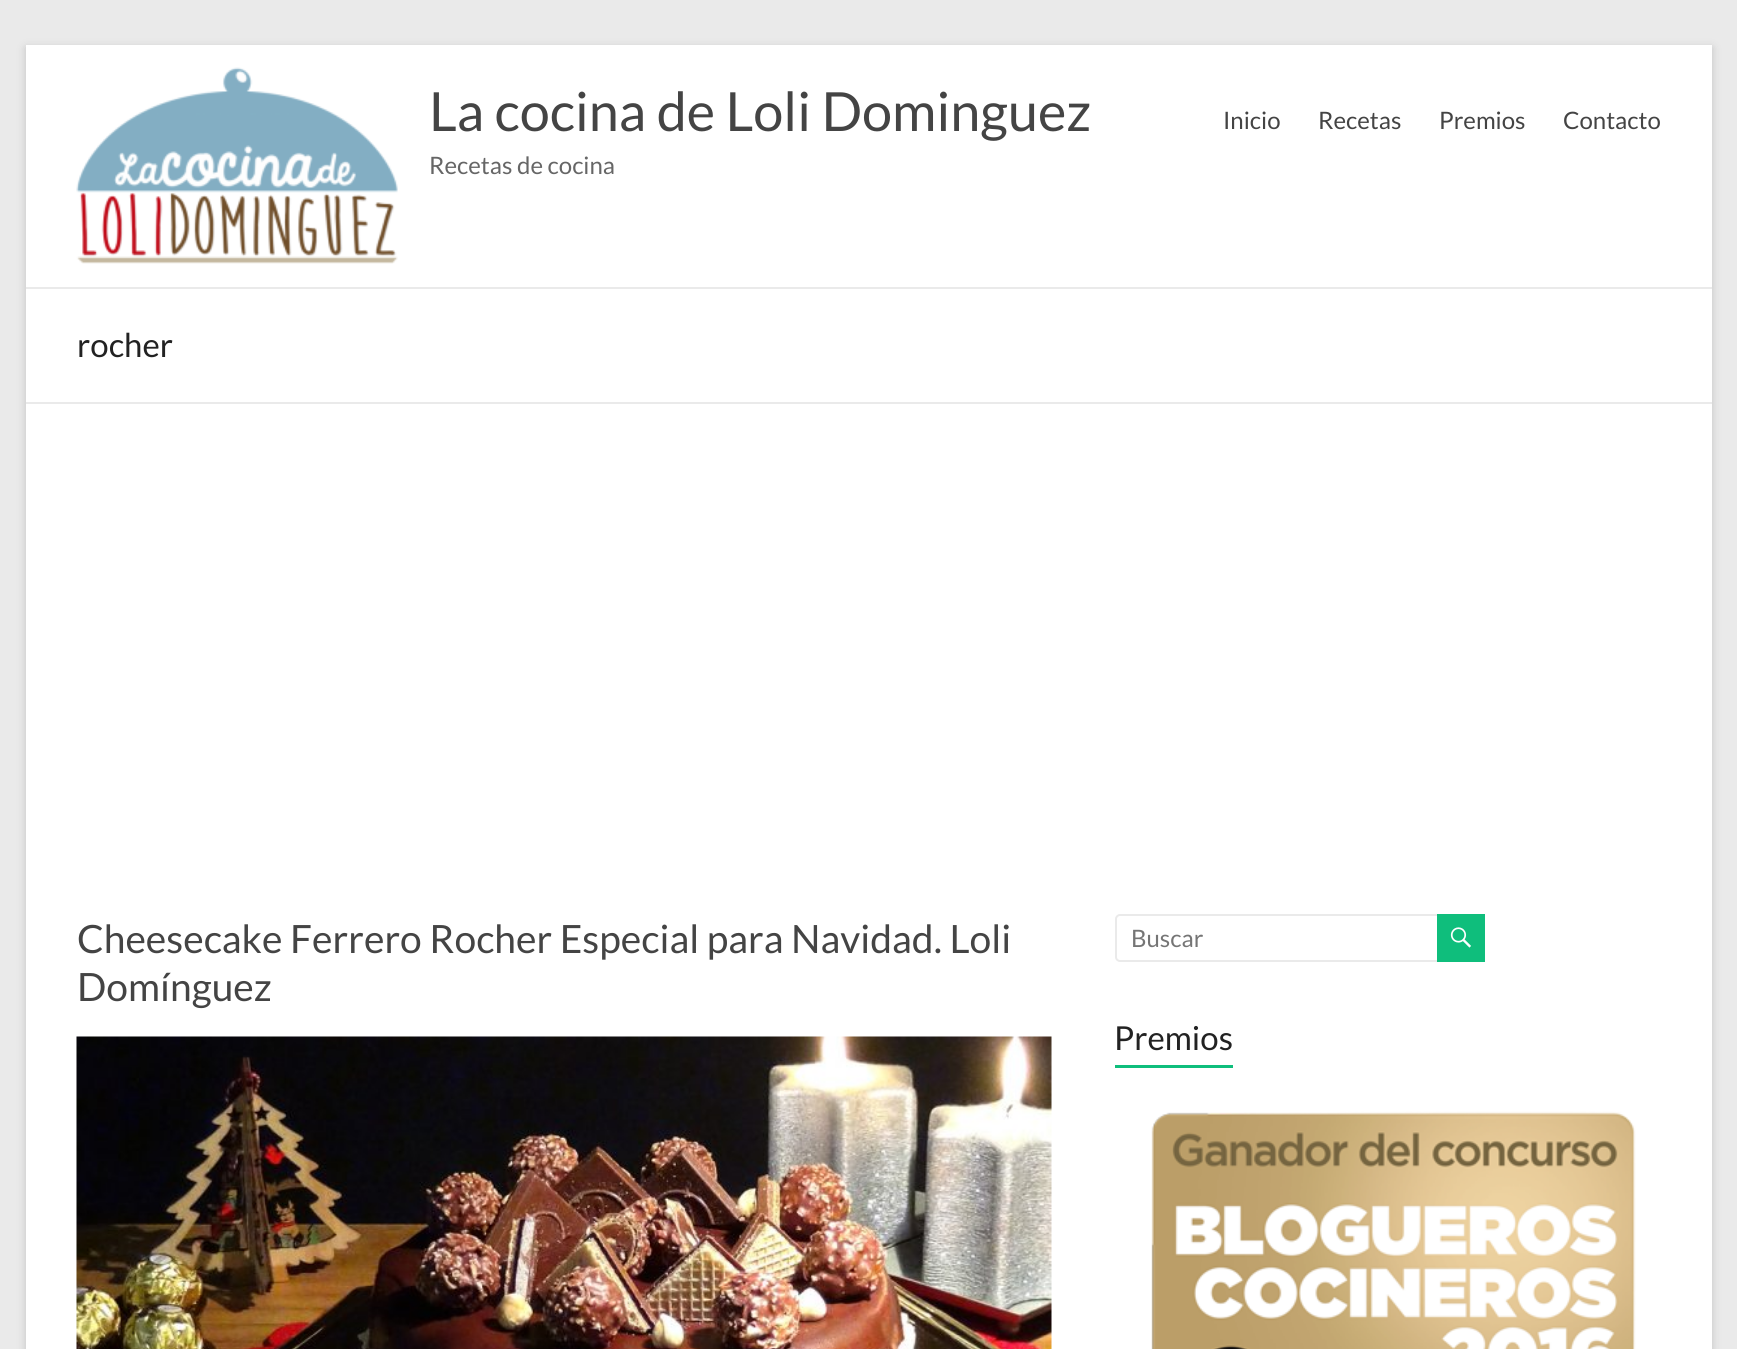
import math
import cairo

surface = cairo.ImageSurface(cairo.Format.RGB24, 1737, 1349)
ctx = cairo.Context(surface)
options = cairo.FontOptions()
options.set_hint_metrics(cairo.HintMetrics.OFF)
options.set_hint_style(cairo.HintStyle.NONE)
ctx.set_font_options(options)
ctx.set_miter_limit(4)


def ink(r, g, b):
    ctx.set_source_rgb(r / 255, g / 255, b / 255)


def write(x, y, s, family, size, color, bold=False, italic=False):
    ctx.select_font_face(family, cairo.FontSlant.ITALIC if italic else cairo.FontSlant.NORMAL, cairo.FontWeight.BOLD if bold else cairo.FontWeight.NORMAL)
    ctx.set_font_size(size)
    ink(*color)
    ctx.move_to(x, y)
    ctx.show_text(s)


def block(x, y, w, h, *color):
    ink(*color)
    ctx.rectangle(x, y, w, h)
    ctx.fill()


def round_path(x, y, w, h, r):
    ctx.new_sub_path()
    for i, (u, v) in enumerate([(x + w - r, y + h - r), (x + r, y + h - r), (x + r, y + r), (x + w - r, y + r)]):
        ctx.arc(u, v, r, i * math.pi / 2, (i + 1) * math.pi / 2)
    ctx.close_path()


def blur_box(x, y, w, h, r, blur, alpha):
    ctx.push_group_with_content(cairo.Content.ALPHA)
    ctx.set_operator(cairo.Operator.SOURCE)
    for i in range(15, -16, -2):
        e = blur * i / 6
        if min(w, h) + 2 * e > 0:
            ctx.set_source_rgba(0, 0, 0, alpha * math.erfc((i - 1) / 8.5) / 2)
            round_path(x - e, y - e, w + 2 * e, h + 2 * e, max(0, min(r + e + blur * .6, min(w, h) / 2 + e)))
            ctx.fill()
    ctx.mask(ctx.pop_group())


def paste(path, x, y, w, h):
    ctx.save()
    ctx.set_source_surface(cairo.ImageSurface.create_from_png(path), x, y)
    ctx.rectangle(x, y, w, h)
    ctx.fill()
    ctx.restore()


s1 = dict(family="Lato", size=54, color=(68, 68, 68))
s2 = dict(family="Lato", size=24, color=(102, 102, 102))
s3 = dict(family="Lato", size=24, color=(68, 68, 68))
s4 = dict(family="Lato", size=33, color=(34, 34, 34))
s5 = dict(family="Lato", size=39, color=(68, 68, 68))
s6 = dict(family="Lato", size=24, color=(117, 117, 117))

ink(234, 234, 234)
ctx.paint()
ink(100, 100, 100)
blur_box(26, 48, 1686, 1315, 0, 4.5, 0.3)
block(26, 45, 1686, 1304, 255, 255, 255)
block(26, 287, 1686, 2, 234, 234, 234)
paste("pic1.png", 76, 67, 322, 197)
write(429, 131, "La cocina de Loli Dominguez", **s1)
write(429, 174, "Recetas de cocina", **s2)
write(1223, 129, "Inicio", **s3)
write(1318, 129, "Recetas", **s3)
write(1439, 129, "Premios", **s3)
write(1563, 129, "Contacto", **s3)
block(26, 402, 1686, 2, 234, 234, 234)
write(77, 357, "rocher", **s4)
write(77, 953, "Cheesecake Ferrero Rocher Especial para Navidad. Loli", **s5)
write(77, 1001, "Domínguez", **s5)
paste("pic2.png", 76, 1036, 976, 313)
round_path(1116, 915, 325, 46, 4)
ink(234, 234, 234)
ctx.stroke()
write(1131, 947, "Buscar", **s6)
block(1437, 914, 48, 48, 15, 190, 124)
paste("pic3.png", 1450, 927, 21, 21)
write(1114, 1050, "Premios", **s4)
block(1115, 1065, 118, 3, 15, 190, 124)
paste("pic4.png", 1151, 1111, 485, 238)
surface.write_to_png("screenshot.png")
